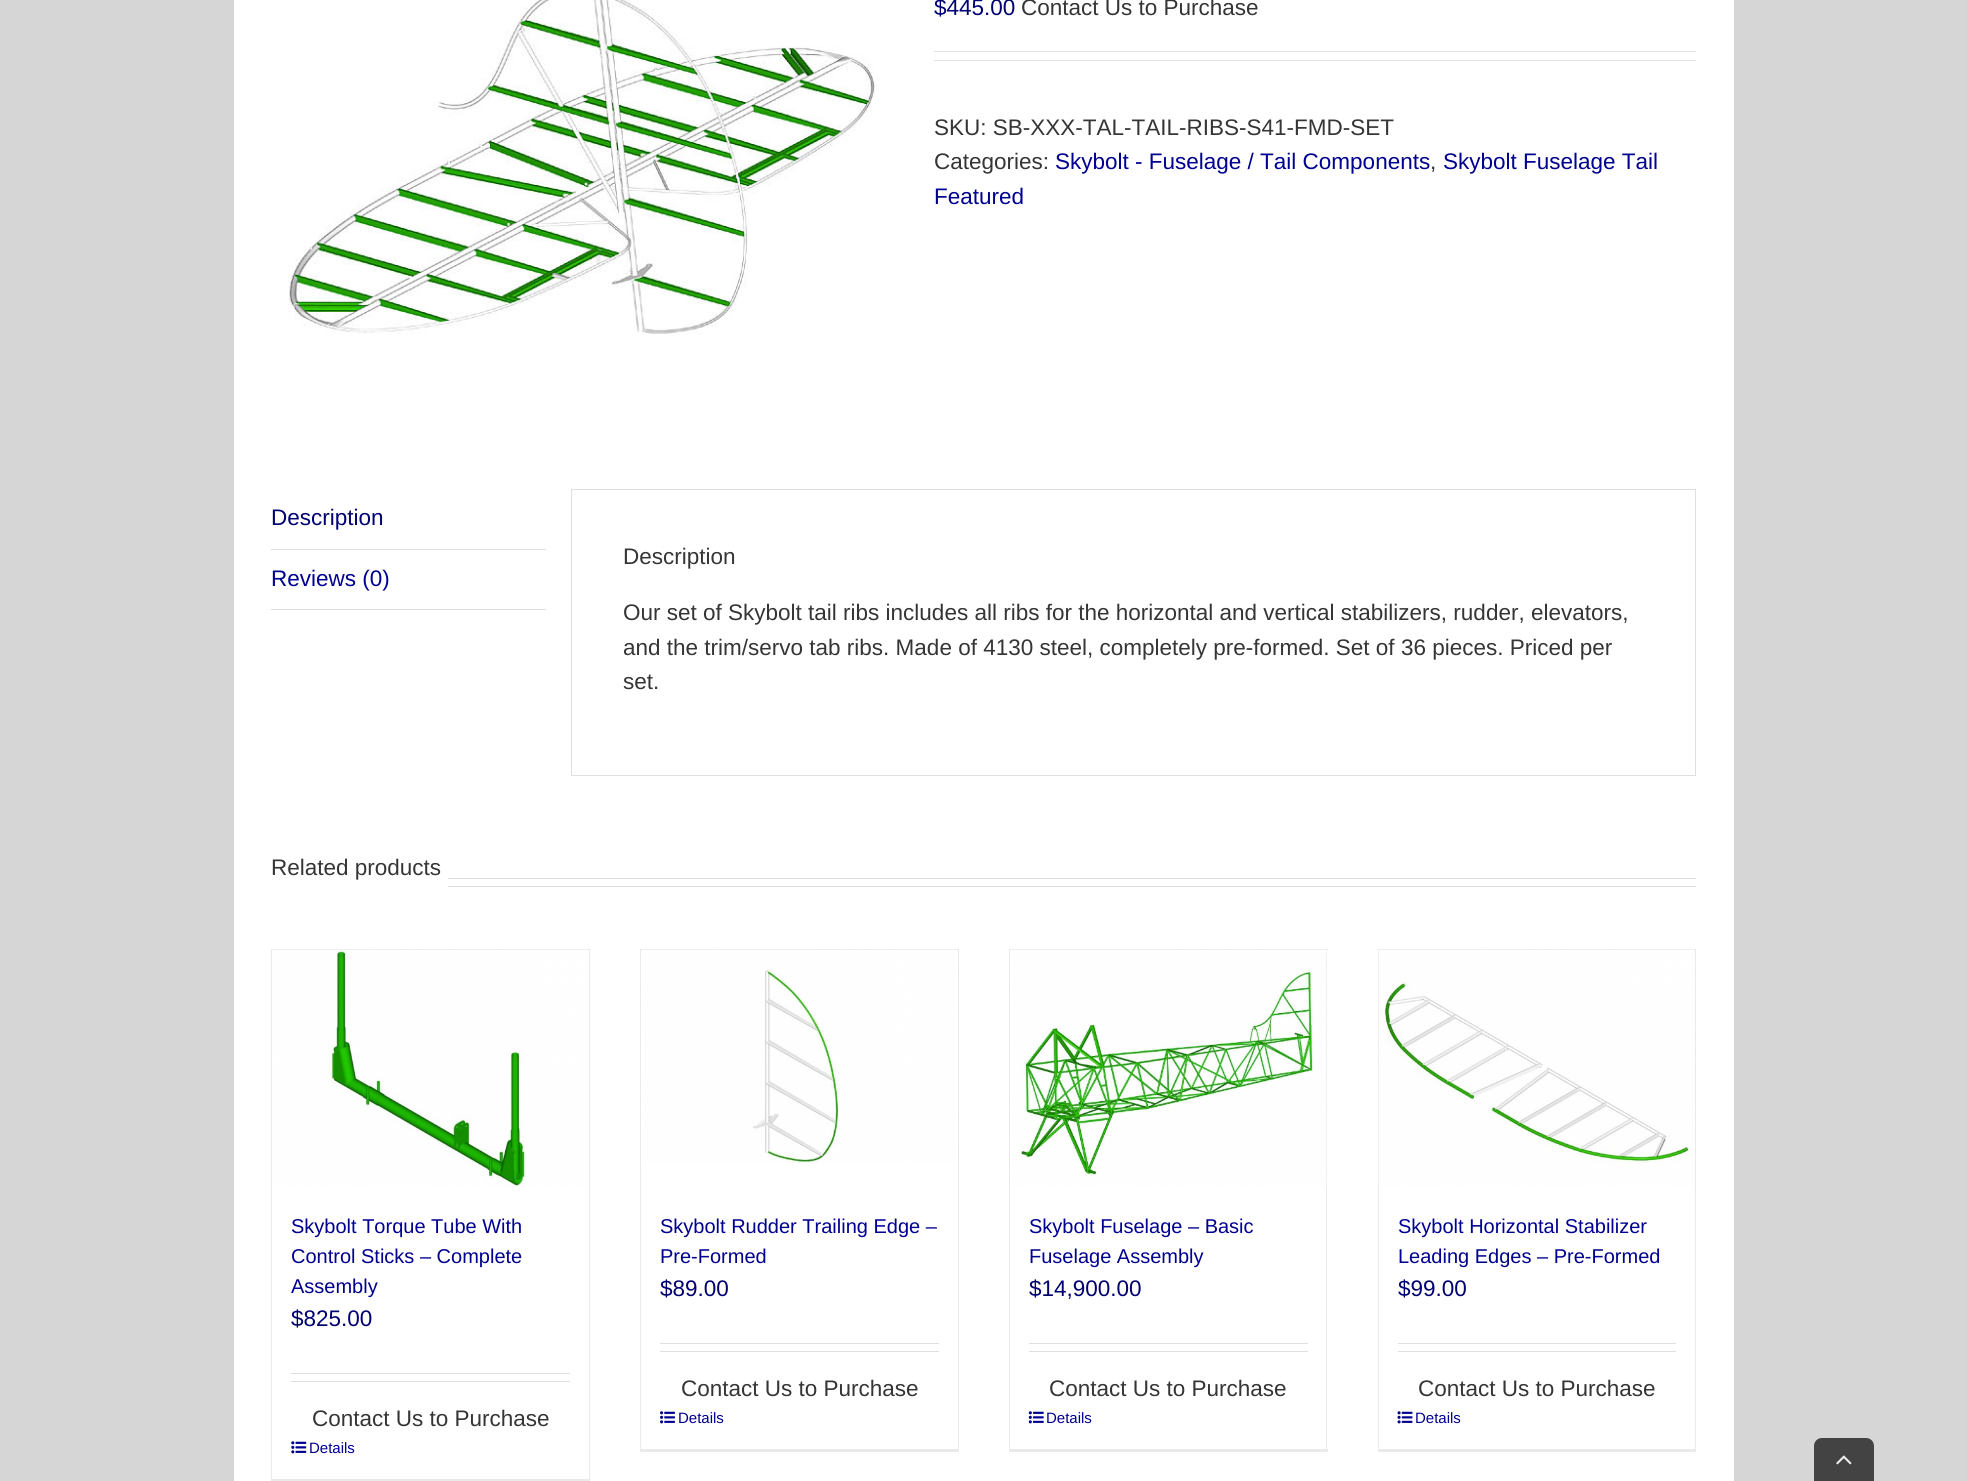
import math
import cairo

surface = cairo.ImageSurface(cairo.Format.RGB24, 1967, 1481)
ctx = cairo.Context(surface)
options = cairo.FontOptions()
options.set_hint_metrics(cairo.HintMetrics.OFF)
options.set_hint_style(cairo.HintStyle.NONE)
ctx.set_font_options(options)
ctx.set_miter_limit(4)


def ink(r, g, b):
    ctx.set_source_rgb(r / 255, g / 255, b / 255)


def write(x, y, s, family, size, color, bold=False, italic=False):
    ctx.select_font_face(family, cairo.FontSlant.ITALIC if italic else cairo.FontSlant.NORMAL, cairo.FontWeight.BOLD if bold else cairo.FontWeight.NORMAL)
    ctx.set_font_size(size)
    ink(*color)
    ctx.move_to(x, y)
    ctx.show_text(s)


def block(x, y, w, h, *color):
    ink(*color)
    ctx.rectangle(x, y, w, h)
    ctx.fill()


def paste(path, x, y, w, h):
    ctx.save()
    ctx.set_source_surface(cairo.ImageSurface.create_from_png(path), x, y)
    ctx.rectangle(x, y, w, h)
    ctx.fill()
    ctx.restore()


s1 = dict(family="Liberation Sans", size=22.5, color=(0, 0, 112))
s2 = dict(family="Liberation Sans", size=22.5, color=(53, 53, 53))
s3 = dict(family="Liberation Sans", size=22.5, color=(0, 0, 144))
s4 = dict(family="Liberation Sans", size=20, color=(0, 0, 144))
s5 = dict(family="Liberation Sans", size=15, color=(0, 0, 144))

ink(215, 214, 214)
ctx.paint()
block(234, 0, 1500, 1481, 255, 255, 255)
paste("pic1.png", 288, 0, 591, 334)
write(934, 15, "$445.00", **s1)
write(1021, 15, "Contact Us to Purchase", **s2)
block(934, 51, 762, 1, 224, 222, 222)
block(934, 60, 762, 1, 224, 222, 222)
write(934, 135, "SKU: SB-XXX-TAL-TAIL-RIBS-S41-FMD-SET", **s2)
write(934, 169, "Categories:", **s2)
write(1055, 169, "Skybolt - Fuselage / Tail Components", **s3)
write(1430, 169, ",", **s2)
write(1443, 169, "Skybolt Fuselage Tail", **s3)
write(934, 204, "Featured", **s3)
block(271, 549, 275, 1, 224, 222, 222)
write(271, 525, "Description", **s1)
block(271, 609, 275, 1, 224, 222, 222)
write(271, 586, "Reviews (0)", **s3)
ctx.rectangle(571.5, 489.5, 1124, 286)
ink(224, 222, 222)
ctx.set_line_width(1)
ctx.stroke()
write(623, 564, "Description", **s2)
write(623, 620, "Our set of Skybolt tail ribs includes all ribs for the horizontal and vertical stabilizers, rudder, elevators,", **s2)
write(623, 655, "and the trim/servo tab ribs. Made of 4130 steel, completely pre-formed. Set of 36 pieces. Priced per", **s2)
write(623, 689, "set.", **s2)
write(271, 875, "Related products", **s2)
block(448, 878, 1248, 1, 224, 222, 222)
block(448, 886, 1248, 1, 224, 222, 222)
block(271, 949, 319, 1, 235, 234, 234)
block(589, 949, 1, 532, 235, 234, 234)
block(271, 1479, 319, 2, 235, 234, 234)
block(271, 949, 1, 532, 235, 234, 234)
paste("pic2.png", 273, 949, 315, 238)
write(291, 1233, "Skybolt Torque Tube With", **s4)
write(291, 1263, "Control Sticks – Complete", **s4)
write(291, 1293, "Assembly", **s4)
write(291, 1326, "$825.00", **s1)
block(291, 1373, 279, 1, 224, 222, 222)
block(291, 1381, 279, 1, 224, 222, 222)
write(312, 1426, "Contact Us to Purchase", **s2)
paste("pic3.png", 291, 1441, 16, 13)
write(309, 1453, "Details", **s5)
block(640, 949, 319, 1, 235, 234, 234)
block(958, 949, 1, 502, 235, 234, 234)
block(640, 1449, 319, 3, 235, 234, 234)
block(640, 949, 1, 502, 235, 234, 234)
paste("pic4.png", 642, 949, 315, 215)
write(660, 1233, "Skybolt Rudder Trailing Edge –", **s4)
write(660, 1263, "Pre-Formed", **s4)
write(660, 1296, "$89.00", **s1)
block(660, 1343, 279, 1, 224, 222, 222)
block(660, 1351, 279, 1, 224, 222, 222)
write(681, 1396, "Contact Us to Purchase", **s2)
paste("pic5.png", 660, 1411, 15, 13)
write(678, 1423, "Details", **s5)
block(1009, 949, 319, 1, 235, 234, 234)
block(1326, 949, 1, 502, 235, 234, 234)
block(1009, 1449, 319, 3, 235, 234, 234)
block(1009, 949, 1, 502, 235, 234, 234)
paste("pic6.png", 1010, 949, 317, 238)
write(1029, 1233, "Skybolt Fuselage – Basic", **s4)
write(1029, 1263, "Fuselage Assembly", **s4)
write(1029, 1296, "$14,900.00", **s1)
block(1029, 1343, 279, 1, 224, 222, 222)
block(1029, 1351, 279, 1, 224, 222, 222)
write(1049, 1396, "Contact Us to Purchase", **s2)
paste("pic7.png", 1028, 1411, 16, 13)
write(1046, 1423, "Details", **s5)
block(1378, 949, 318, 1, 235, 234, 234)
block(1695, 949, 1, 502, 235, 234, 234)
block(1378, 1449, 318, 3, 235, 234, 234)
block(1378, 949, 1, 502, 235, 234, 234)
paste("pic8.png", 1378, 949, 317, 238)
write(1398, 1233, "Skybolt Horizontal Stabilizer", **s4)
write(1398, 1263, "Leading Edges – Pre-Formed", **s4)
write(1398, 1296, "$99.00", **s1)
block(1398, 1343, 278, 1, 224, 222, 222)
block(1398, 1351, 278, 1, 224, 222, 222)
write(1418, 1396, "Contact Us to Purchase", **s2)
paste("pic9.png", 1397, 1411, 16, 13)
write(1415, 1423, "Details", **s5)
ink(67, 67, 67)
ctx.new_path()
ctx.move_to(1822, 1438)
ctx.line_to(1866, 1438)
ctx.curve_to(1870.5, 1438, 1874, 1441.5, 1874, 1446)
ctx.line_to(1874, 1481)
ctx.line_to(1814, 1481)
ctx.line_to(1814, 1446)
ctx.curve_to(1814, 1441.5, 1817.5, 1438, 1822, 1438)
ctx.close_path()
ctx.fill()
paste("pic10.png", 1836, 1455, 16, 10)
surface.write_to_png("screenshot.png")
